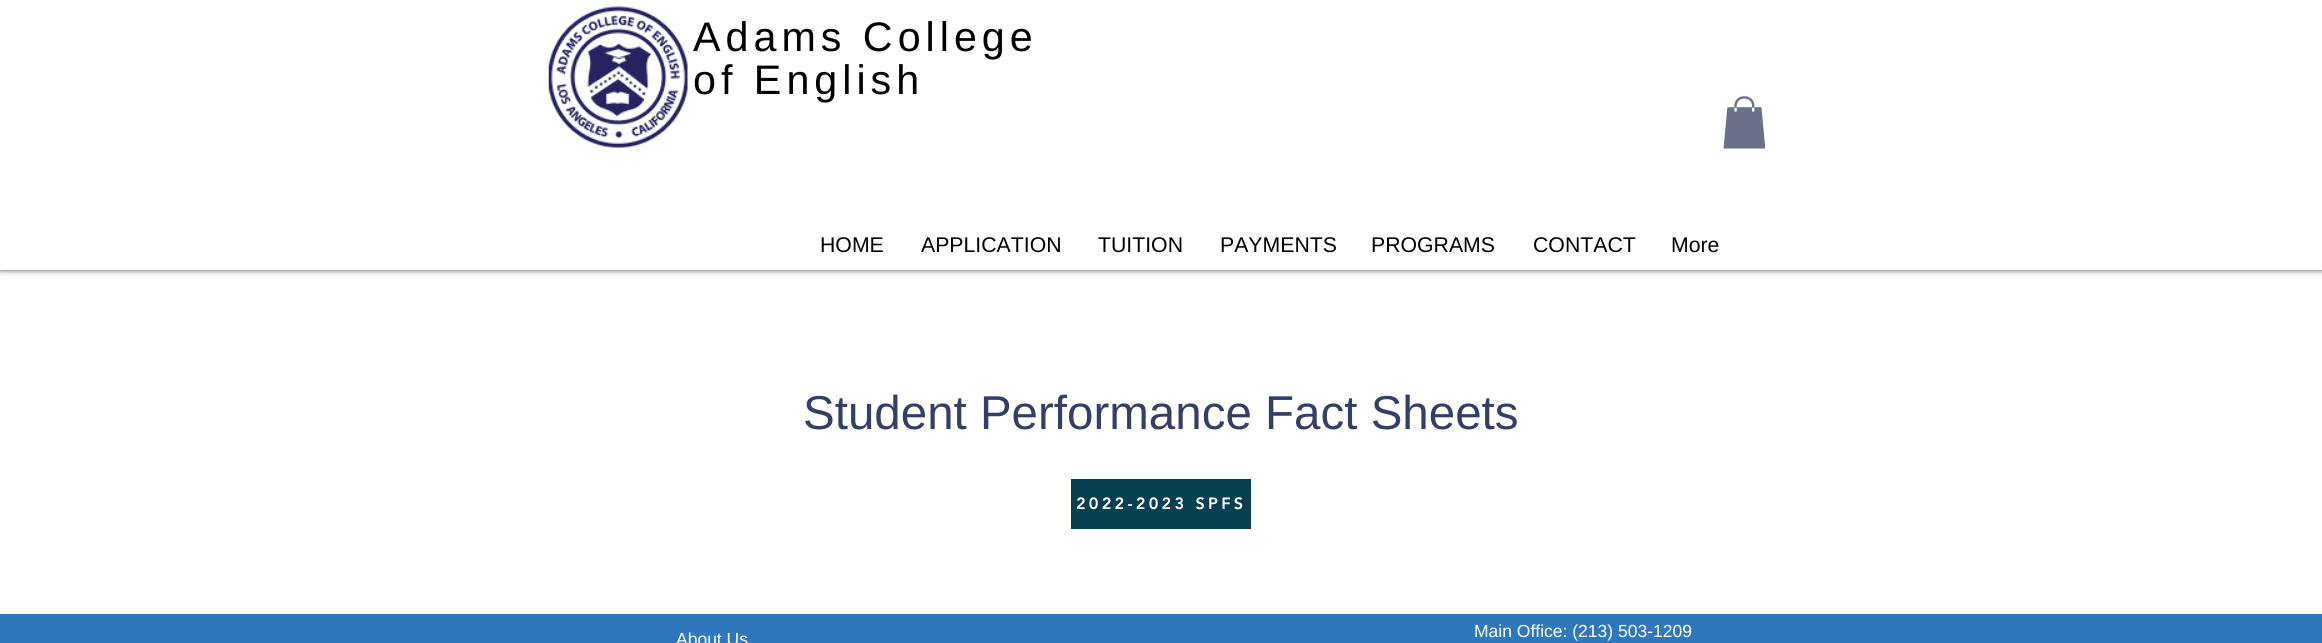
import math
import cairo

surface = cairo.ImageSurface(cairo.Format.RGB24, 2322, 643)
ctx = cairo.Context(surface)
options = cairo.FontOptions()
options.set_hint_metrics(cairo.HintMetrics.OFF)
options.set_hint_style(cairo.HintStyle.NONE)
ctx.set_font_options(options)
ctx.set_miter_limit(4)


def ink(r, g, b):
    ctx.set_source_rgb(r / 255, g / 255, b / 255)


def write(x, y, s, family, size, color, bold=False, italic=False):
    ctx.select_font_face(family, cairo.FontSlant.ITALIC if italic else cairo.FontSlant.NORMAL, cairo.FontWeight.BOLD if bold else cairo.FontWeight.NORMAL)
    ctx.set_font_size(size)
    ink(*color)
    ctx.move_to(x, y)
    ctx.show_text(s)


def write_spaced(x, y, s, letter, word):
    ctx.move_to(x, y)
    for ch in s:
        ctx.show_text(ch)
        ctx.rel_move_to(letter + word * (ch == ' '), 0)


def block(x, y, w, h, *color):
    ink(*color)
    ctx.rectangle(x, y, w, h)
    ctx.fill()


def round_path(x, y, w, h, r):
    ctx.new_sub_path()
    for i, (u, v) in enumerate([(x + w - r, y + h - r), (x + r, y + h - r), (x + r, y + r), (x + w - r, y + r)]):
        ctx.arc(u, v, r, i * math.pi / 2, (i + 1) * math.pi / 2)
    ctx.close_path()


def blur_box(x, y, w, h, r, blur, alpha):
    ctx.push_group_with_content(cairo.Content.ALPHA)
    ctx.set_operator(cairo.Operator.SOURCE)
    for i in range(15, -16, -2):
        e = blur * i / 6
        if min(w, h) + 2 * e > 0:
            ctx.set_source_rgba(0, 0, 0, alpha * math.erfc((i - 1) / 8.5) / 2)
            round_path(x - e, y - e, w + 2 * e, h + 2 * e, max(0, min(r + e + blur * .6, min(w, h) / 2 + e)))
            ctx.fill()
    ctx.mask(ctx.pop_group())


def paste(path, x, y, w, h):
    ctx.save()
    ctx.set_source_surface(cairo.ImageSurface.create_from_png(path), x, y)
    ctx.rectangle(x, y, w, h)
    ctx.fill()
    ctx.restore()


s1 = dict(family="Liberation Sans", size=21.25, color=(0, 0, 0))
s2 = dict(family="Liberation Sans", size=47.5, color=(52, 63, 100))
s3 = dict(family="Liberation Sans", size=17.5, color=(255, 255, 255))

ink(255, 255, 255)
ctx.paint()
ink(0, 0, 0)
blur_box(0, 0, 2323, 270, 0, 3, 0.7)
block(0, 0, 2322, 270, 255, 255, 255)
paste("pic1.png", 548, 6, 140, 143)
ctx.select_font_face("Liberation Sans")
ctx.set_font_size(41.25)
ink(0, 0, 0)
write_spaced(693, 51, "Adams College", 5, 0)
write_spaced(693, 94, "of English", 5, 0)
paste("pic2.png", 1723, 96, 43, 53)
write(820, 252, "HOME", **s1)
write(921, 252, "APPLICATION", **s1)
write(1098, 252, "TUITION", **s1)
write(1220, 252, "PAYMENTS", **s1)
write(1371, 252, "PROGRAMS", **s1)
write(1533, 252, "CONTACT", **s1)
write(1671, 252, "More", **s1)
write(803, 429, "Student Performance Fact Sheets", **s2)
block(1071, 479, 180, 50, 7, 65, 81)
ctx.select_font_face("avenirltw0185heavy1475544 Black")
ctx.set_font_size(16.25)
ink(255, 255, 255)
write_spaced(1076, 509, "2022-2023 SPFS", 3.25, 0)
block(0, 614, 2322, 29, 48, 120, 190)
write(676, 645, "About Us", **s3)
write(1474, 637, "Main Office: (213) 503-1209", **s3)
surface.write_to_png("screenshot.png")
